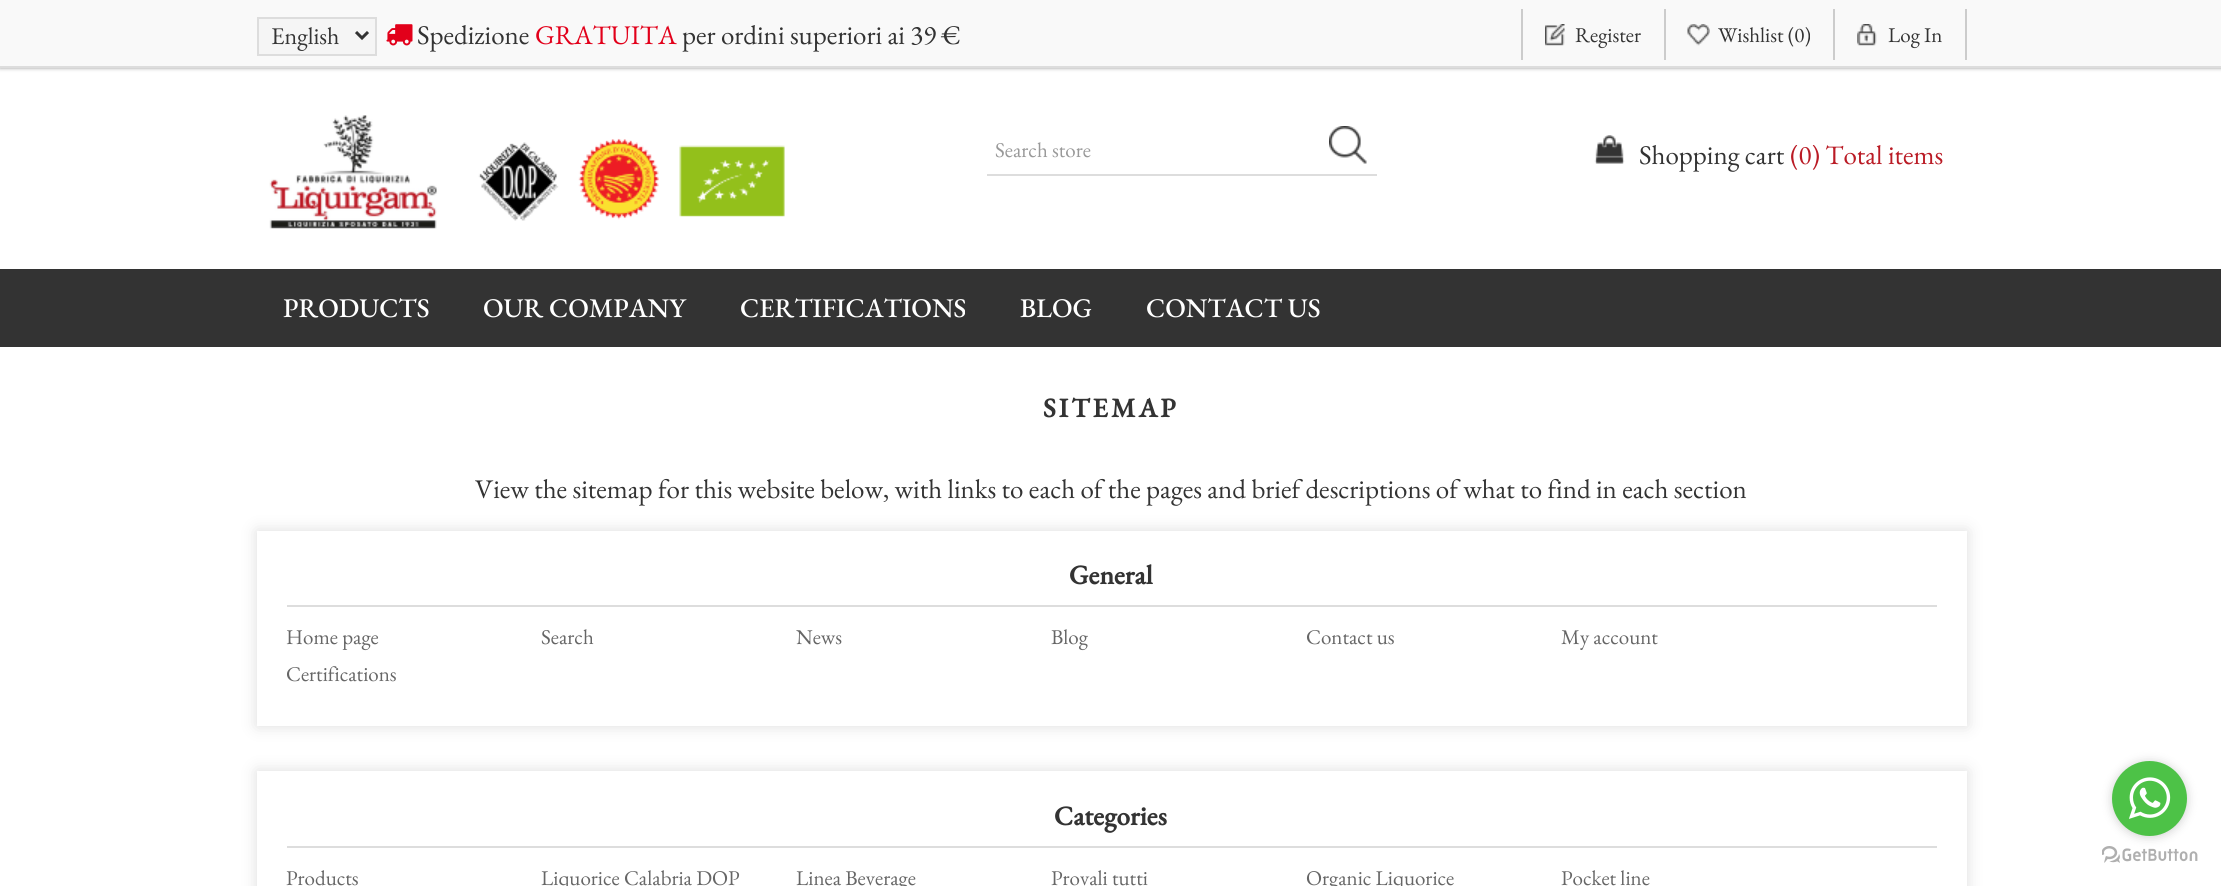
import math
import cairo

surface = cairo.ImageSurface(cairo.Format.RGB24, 2221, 886)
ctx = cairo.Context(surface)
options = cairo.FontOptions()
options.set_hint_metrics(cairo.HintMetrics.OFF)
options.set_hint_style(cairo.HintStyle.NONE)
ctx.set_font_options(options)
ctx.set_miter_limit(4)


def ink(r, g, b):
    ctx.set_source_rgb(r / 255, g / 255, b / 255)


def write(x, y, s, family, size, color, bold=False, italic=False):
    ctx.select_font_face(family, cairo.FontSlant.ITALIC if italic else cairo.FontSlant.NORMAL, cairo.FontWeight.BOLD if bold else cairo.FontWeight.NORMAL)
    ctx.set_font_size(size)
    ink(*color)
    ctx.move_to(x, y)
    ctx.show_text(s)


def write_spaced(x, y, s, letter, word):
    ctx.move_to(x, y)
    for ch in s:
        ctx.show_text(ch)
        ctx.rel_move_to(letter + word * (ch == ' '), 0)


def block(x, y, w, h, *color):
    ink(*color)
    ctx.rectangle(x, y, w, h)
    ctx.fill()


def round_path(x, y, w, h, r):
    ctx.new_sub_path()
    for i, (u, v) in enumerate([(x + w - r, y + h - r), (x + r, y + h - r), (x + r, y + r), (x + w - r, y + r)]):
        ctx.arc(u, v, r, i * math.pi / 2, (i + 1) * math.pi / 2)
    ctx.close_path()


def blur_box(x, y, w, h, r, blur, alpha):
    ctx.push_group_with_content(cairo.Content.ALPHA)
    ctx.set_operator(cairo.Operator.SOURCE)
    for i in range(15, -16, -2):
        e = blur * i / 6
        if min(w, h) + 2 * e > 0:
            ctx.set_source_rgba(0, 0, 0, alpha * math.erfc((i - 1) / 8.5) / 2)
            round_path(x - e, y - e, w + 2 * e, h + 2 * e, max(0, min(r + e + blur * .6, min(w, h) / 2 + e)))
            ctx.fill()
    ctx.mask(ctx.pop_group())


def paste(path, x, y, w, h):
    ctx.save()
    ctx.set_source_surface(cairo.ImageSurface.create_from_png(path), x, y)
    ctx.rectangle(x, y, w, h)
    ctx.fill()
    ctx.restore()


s1 = dict(family="EB Garamond", size=24, color=(51, 51, 51))
s2 = dict(family="EB Garamond", size=27, color=(51, 51, 51))
s3 = dict(family="EB Garamond", size=27, color=(226, 0, 26))
s4 = dict(family="EB Garamond", size=21, color=(51, 51, 51))
s5 = dict(family="EB Garamond", size=21, color=(153, 153, 153))
s6 = dict(family="EB Garamond", size=27, color=(186, 27, 37))
s7 = dict(family="EB Garamond Medium", size=27, color=(255, 255, 255))
s8 = dict(family="EB Garamond", size=27, color=(51, 51, 51), bold=True)
s9 = dict(family="EB Garamond", size=21, color=(102, 102, 102))

ink(255, 255, 255)
ctx.paint()
ink(153, 153, 153)
blur_box(0, 0, 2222, 68, 0, 2, 1)
block(0, 0, 2221, 66, 249, 249, 249)
block(0, 66, 2221, 2, 221, 221, 221)
ink(245, 245, 245)
ctx.rectangle(258, 18, 118, 37)
ctx.fill_preserve()
ink(221, 221, 221)
ctx.stroke()
ctx.new_path()
ctx.move_to(356, 32)
ctx.line_to(362, 38)
ctx.line_to(368, 32)
ink(51, 51, 51)
ctx.set_line_width(3)
ctx.stroke()
write(271, 44, "English", **s1)
paste("pic1.png", 386, 24, 27, 22)
write(417, 44, "Spedizione", **s2)
write(535, 44, "GRATUITA", **s3)
write(682, 44, "per ordini superiori ai 39 €", **s2)
paste("pic2.png", 1545, 24, 20, 22)
block(1664, 9, 2, 51, 204, 204, 204)
block(1521, 9, 2, 51, 204, 204, 204)
write(1575, 42, "Register", **s4)
paste("pic3.png", 1687, 24, 23, 22)
block(1833, 9, 2, 51, 204, 204, 204)
write(1718, 42, "Wishlist (0)", **s4)
paste("pic4.png", 1857, 24, 20, 22)
block(1965, 9, 2, 51, 204, 204, 204)
write(1888, 42, "Log In", **s4)
paste("pic5.png", 269, 115, 516, 114)
block(987, 174, 390, 2, 221, 221, 221)
write(995, 157, "Search store", **s5)
paste("pic6.png", 1329, 126, 38, 38)
paste("pic7.png", 1594, 135, 31, 29)
write(1639, 164, "Shopping cart", **s2)
write(1790, 164, "(0) Total items", **s6)
block(0, 269, 2221, 78, 51, 51, 51)
write(283, 317, "PRODUCTS", **s7)
write(483, 317, "OUR COMPANY", **s7)
write(740, 317, "CERTIFICATIONS", **s7)
write(1020, 317, "BLOG", **s7)
write(1146, 317, "CONTACT US", **s7)
ctx.select_font_face("EB Garamond", cairo.FontSlant.NORMAL, cairo.FontWeight.BOLD)
ink(51, 51, 51)
write_spaced(1043, 417, "SITEMAP", 3, 0)
write(475, 498, "View the sitemap for this website below, with links to each of the pages and brief descriptions of what to find in each section", **s2)
ctx.save()
ctx.set_fill_rule(cairo.FillRule.EVEN_ODD)
ctx.new_path()
ctx.move_to(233, 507)
ctx.line_to(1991, 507)
ctx.line_to(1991, 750)
ctx.line_to(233, 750)
ctx.close_path()
ctx.move_to(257, 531)
ctx.line_to(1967, 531)
ctx.line_to(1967, 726)
ctx.line_to(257, 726)
ctx.close_path()
ctx.clip()
ink(221, 221, 221)
blur_box(257, 531, 1710, 195, 0, 7.5, 1)
ctx.restore()
block(287, 605, 1650, 2, 221, 221, 221)
write(1069, 584, "General", **s8)
write(286, 644, "Home page", **s9)
write(541, 644, "Search", **s9)
write(796, 644, "News", **s9)
write(1051, 644, "Blog", **s9)
write(1306, 644, "Contact us", **s9)
write(1561, 644, "My account", **s9)
ctx.save()
ctx.rectangle(287, 621, 1650, 75)
ctx.clip()
write(286, 681, "Certifications", **s9)
ctx.restore()
ctx.save()
ctx.set_fill_rule(cairo.FillRule.EVEN_ODD)
ctx.new_path()
ctx.move_to(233, 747)
ctx.line_to(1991, 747)
ctx.line_to(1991, 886)
ctx.line_to(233, 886)
ctx.close_path()
ctx.move_to(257, 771)
ctx.line_to(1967, 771)
ctx.line_to(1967, 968)
ctx.line_to(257, 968)
ctx.close_path()
ctx.clip()
ink(221, 221, 221)
blur_box(257, 771, 1710, 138, 0, 7.5, 1)
ctx.restore()
block(287, 846, 1650, 2, 221, 221, 221)
write(1054, 825, "Categories", **s8)
write(286, 885, "Products", **s9)
write(541, 885, "Liquorice Calabria DOP", **s9)
write(796, 885, "Linea Beverage", **s9)
write(1051, 885, "Provali tutti", **s9)
write(1306, 885, "Organic Liquorice", **s9)
write(1561, 885, "Pocket line", **s9)
paste("pic9.png", 2102, 846, 96, 17)
ink(136, 136, 136)
blur_box(2112, 762, 75, 75, 37.5, 5, 0.4)
ink(77, 194, 71)
ctx.arc(2149.5, 798.5, 37.5, 0, 2 * math.pi)
ctx.fill()
paste("pic8.png", 2129, 777, 42, 42)
surface.write_to_png("screenshot.png")
